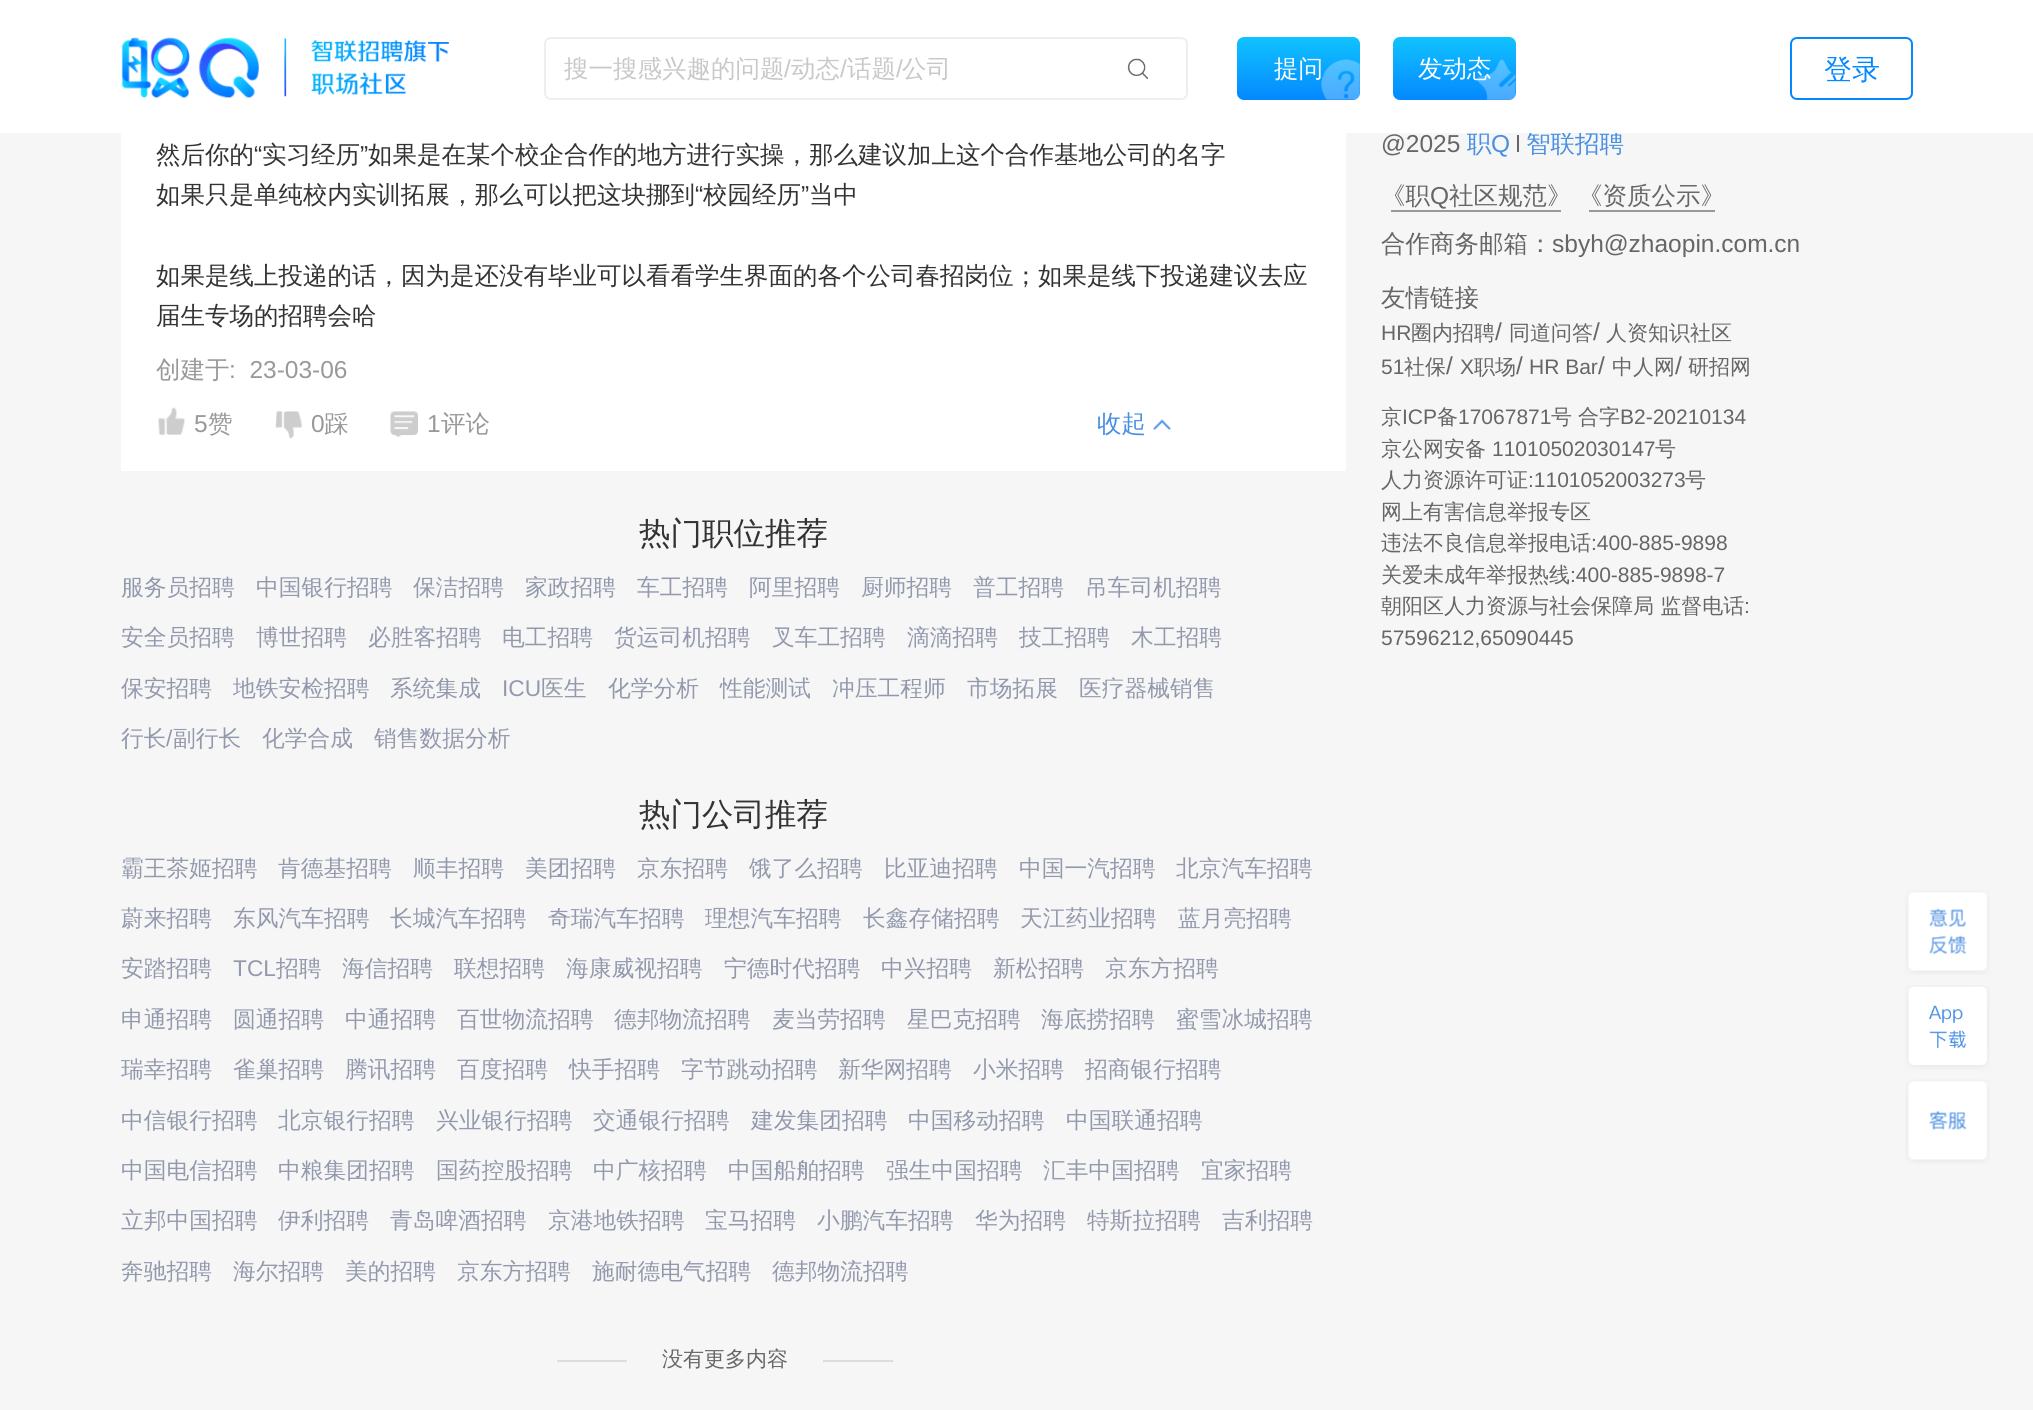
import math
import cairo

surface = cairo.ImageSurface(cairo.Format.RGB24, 2033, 1410)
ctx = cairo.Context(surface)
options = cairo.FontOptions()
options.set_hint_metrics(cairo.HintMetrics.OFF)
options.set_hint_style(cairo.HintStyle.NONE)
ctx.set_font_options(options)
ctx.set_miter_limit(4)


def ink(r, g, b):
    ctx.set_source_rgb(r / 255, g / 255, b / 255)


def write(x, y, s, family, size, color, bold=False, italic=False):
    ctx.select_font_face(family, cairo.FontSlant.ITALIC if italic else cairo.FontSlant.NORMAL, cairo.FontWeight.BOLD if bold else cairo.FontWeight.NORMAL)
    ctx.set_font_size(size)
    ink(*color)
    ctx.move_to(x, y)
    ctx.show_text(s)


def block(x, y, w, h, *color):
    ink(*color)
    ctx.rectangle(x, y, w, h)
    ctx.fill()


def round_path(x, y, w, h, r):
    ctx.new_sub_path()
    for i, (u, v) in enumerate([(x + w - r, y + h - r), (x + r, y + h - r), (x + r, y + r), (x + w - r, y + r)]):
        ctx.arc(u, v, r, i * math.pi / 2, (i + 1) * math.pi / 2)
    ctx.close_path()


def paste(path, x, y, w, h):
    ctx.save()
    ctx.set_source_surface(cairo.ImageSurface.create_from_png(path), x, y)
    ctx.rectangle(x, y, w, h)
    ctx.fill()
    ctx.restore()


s1 = dict(family="WenQuanYi Zen Hei Medium", size=24.5, color=(74, 144, 226))
s2 = dict(family="WenQuanYi Zen Hei Medium", size=24.5, color=(200, 200, 200))
s3 = dict(family="Liberation Sans", size=24.5, color=(200, 200, 200))
s4 = dict(family="WenQuanYi Zen Hei Medium", size=24.5, color=(255, 255, 255))
s5 = dict(family="WenQuanYi Zen Hei Medium", size=28, color=(5, 136, 255))
s6 = dict(family="WenQuanYi Zen Hei Medium", size=24.5, color=(51, 51, 51))
s7 = dict(family="Liberation Sans", size=24.5, color=(51, 51, 51))
s8 = dict(family="WenQuanYi Zen Hei Medium", size=24.5, color=(153, 153, 153))
s9 = dict(family="Liberation Sans", size=24.5, color=(153, 153, 153))
s10 = dict(family="WenQuanYi Zen Hei Medium", size=31.5, color=(51, 51, 51))
s11 = dict(family="WenQuanYi Zen Hei Medium", size=22.75, color=(147, 153, 173))
s12 = dict(family="Liberation Sans", size=22.75, color=(147, 153, 173))
s13 = dict(family="Liberation Sans", size=24.5, color=(102, 102, 102))
s14 = dict(family="Liberation Sans", size=24.5, color=(74, 144, 226))
s15 = dict(family="WenQuanYi Zen Hei Medium", size=24.5, color=(102, 102, 102))
s16 = dict(family="Liberation Sans", size=21, color=(102, 102, 102))
s17 = dict(family="WenQuanYi Zen Hei Medium", size=21, color=(102, 102, 102))

ink(246, 246, 246)
ctx.paint()
write(1526, 152, "智联招聘", **s1)
block(0, 0, 2033, 133, 255, 255, 255)
paste("pic1.png", 121, 37, 328, 61)
round_path(545, 38, 642, 61, 6)
ink(238, 238, 238)
ctx.stroke()
write(564, 77, "搜一搜感兴趣的问题", **s2)
write(784, 77, "/", **s3)
write(791, 77, "动态", **s2)
write(840, 77, "/", **s3)
write(847, 77, "话题", **s2)
write(896, 77, "/", **s3)
write(902, 77, "公司", **s2)
paste("pic2.png", 1127, 58, 22, 22)
gradient = cairo.LinearGradient(1299, 37, 1299, 100)
gradient.add_color_stop_rgba(0, 0.063, 0.765, 1, 1)
gradient.add_color_stop_rgba(1, 0.02, 0.533, 1, 1)
ctx.set_source(gradient)
round_path(1237, 37, 123, 63, 7)
ctx.fill()
paste("pic3.png", 1321, 59, 39, 41)
write(1274, 77, "提问", **s4)
gradient = cairo.LinearGradient(1454, 37, 1454, 100)
gradient.add_color_stop_rgba(0, 0.063, 0.765, 1, 1)
gradient.add_color_stop_rgba(1, 0.02, 0.533, 1, 1)
ctx.set_source(gradient)
round_path(1393, 37, 123, 63, 7)
ctx.fill()
paste("pic4.png", 1477, 59, 39, 41)
write(1418, 77, "发动态", **s4)
round_path(1791, 38, 121, 61, 6)
ink(5, 136, 255)
ctx.stroke()
write(1824, 79, "登录", **s5)
paste("pic5.png", 1905, 890, 85, 85)
paste("pic6.png", 1905, 985, 85, 85)
paste("pic7.png", 1905, 1079, 85, 85)
block(121, 133, 1225, 338, 255, 255, 255)
write(156, 163, "然后你的", **s6)
write(254, 163, "“", **s7)
write(262, 163, "实习经历", **s6)
write(360, 163, "”", **s7)
write(368, 163, "如果是在某个校企合作的地方进行实操，那么建议加上这个合作基地公司的名字", **s6)
write(156, 203, "如果只是单纯校内实训拓展，那么可以把这块挪到", **s6)
write(695, 203, "“", **s7)
write(703, 203, "校园经历", **s6)
write(801, 203, "”", **s7)
write(809, 203, "当中", **s6)
write(156, 284, "如果是线上投递的话，因为是还没有毕业可以看看学生界面的各个公司春招岗位；如果是线下投递建议去应", **s6)
write(156, 324, "届生专场的招聘会哈", **s6)
write(1097, 432, "收起", **s1)
paste("pic8.png", 1153, 419, 18, 11)
write(156, 378, "创建于", **s8)
write(229, 378, ":  23-03-06", **s9)
paste("pic9.png", 158, 407, 27, 28)
write(194, 432, "5", **s9)
write(208, 432, "赞", **s8)
paste("pic10.png", 275, 411, 28, 28)
write(311, 432, "0", **s9)
write(324, 432, "踩", **s8)
paste("pic11.png", 390, 411, 28, 26)
write(427, 432, "1", **s9)
write(441, 432, "评论", **s8)
write(639, 544, "热门职位推荐", **s10)
write(121, 595, "服务员招聘", **s11)
write(256, 595, "中国银行招聘", **s11)
write(413, 595, "保洁招聘", **s11)
write(525, 595, "家政招聘", **s11)
write(637, 595, "车工招聘", **s11)
write(749, 595, "阿里招聘", **s11)
write(861, 595, "厨师招聘", **s11)
write(973, 595, "普工招聘", **s11)
write(1085, 595, "吊车司机招聘", **s11)
write(121, 645, "安全员招聘", **s11)
write(256, 645, "博世招聘", **s11)
write(368, 645, "必胜客招聘", **s11)
write(502, 645, "电工招聘", **s11)
write(614, 645, "货运司机招聘", **s11)
write(772, 645, "叉车工招聘", **s11)
write(907, 645, "滴滴招聘", **s11)
write(1019, 645, "技工招聘", **s11)
write(1131, 645, "木工招聘", **s11)
write(121, 696, "保安招聘", **s11)
write(233, 696, "地铁安检招聘", **s11)
write(390, 696, "系统集成", **s11)
write(502, 696, "ICU", **s12)
write(541, 696, "医生", **s11)
write(608, 696, "化学分析", **s11)
write(720, 696, "性能测试", **s11)
write(832, 696, "冲压工程师", **s11)
write(967, 696, "市场拓展", **s11)
write(1079, 696, "医疗器械销售", **s11)
write(121, 746, "行长", **s11)
write(166, 746, "/", **s12)
write(173, 746, "副行长", **s11)
write(262, 746, "化学合成", **s11)
write(374, 746, "销售数据分析", **s11)
write(639, 825, "热门公司推荐", **s10)
write(121, 876, "霸王茶姬招聘", **s11)
write(278, 876, "肯德基招聘", **s11)
write(413, 876, "顺丰招聘", **s11)
write(525, 876, "美团招聘", **s11)
write(637, 876, "京东招聘", **s11)
write(749, 876, "饿了么招聘", **s11)
write(884, 876, "比亚迪招聘", **s11)
write(1019, 876, "中国一汽招聘", **s11)
write(1176, 876, "北京汽车招聘", **s11)
write(121, 926, "蔚来招聘", **s11)
write(233, 926, "东风汽车招聘", **s11)
write(390, 926, "长城汽车招聘", **s11)
write(548, 926, "奇瑞汽车招聘", **s11)
write(705, 926, "理想汽车招聘", **s11)
write(863, 926, "长鑫存储招聘", **s11)
write(1020, 926, "天江药业招聘", **s11)
write(1178, 926, "蓝月亮招聘", **s11)
write(121, 976, "安踏招聘", **s11)
write(233, 976, "TCL", **s12)
write(276, 976, "招聘", **s11)
write(342, 976, "海信招聘", **s11)
write(454, 976, "联想招聘", **s11)
write(566, 976, "海康威视招聘", **s11)
write(724, 976, "宁德时代招聘", **s11)
write(881, 976, "中兴招聘", **s11)
write(993, 976, "新松招聘", **s11)
write(1105, 976, "京东方招聘", **s11)
write(121, 1027, "申通招聘", **s11)
write(233, 1027, "圆通招聘", **s11)
write(345, 1027, "中通招聘", **s11)
write(457, 1027, "百世物流招聘", **s11)
write(614, 1027, "德邦物流招聘", **s11)
write(772, 1027, "麦当劳招聘", **s11)
write(907, 1027, "星巴克招聘", **s11)
write(1041, 1027, "海底捞招聘", **s11)
write(1176, 1027, "蜜雪冰城招聘", **s11)
write(121, 1077, "瑞幸招聘", **s11)
write(233, 1077, "雀巢招聘", **s11)
write(345, 1077, "腾讯招聘", **s11)
write(457, 1077, "百度招聘", **s11)
write(569, 1077, "快手招聘", **s11)
write(681, 1077, "字节跳动招聘", **s11)
write(838, 1077, "新华网招聘", **s11)
write(973, 1077, "小米招聘", **s11)
write(1085, 1077, "招商银行招聘", **s11)
write(121, 1128, "中信银行招聘", **s11)
write(278, 1128, "北京银行招聘", **s11)
write(436, 1128, "兴业银行招聘", **s11)
write(593, 1128, "交通银行招聘", **s11)
write(751, 1128, "建发集团招聘", **s11)
write(908, 1128, "中国移动招聘", **s11)
write(1066, 1128, "中国联通招聘", **s11)
write(121, 1178, "中国电信招聘", **s11)
write(278, 1178, "中粮集团招聘", **s11)
write(436, 1178, "国药控股招聘", **s11)
write(593, 1178, "中广核招聘", **s11)
write(728, 1178, "中国船舶招聘", **s11)
write(886, 1178, "强生中国招聘", **s11)
write(1043, 1178, "汇丰中国招聘", **s11)
write(1201, 1178, "宜家招聘", **s11)
write(121, 1228, "立邦中国招聘", **s11)
write(278, 1228, "伊利招聘", **s11)
write(390, 1228, "青岛啤酒招聘", **s11)
write(548, 1228, "京港地铁招聘", **s11)
write(705, 1228, "宝马招聘", **s11)
write(817, 1228, "小鹏汽车招聘", **s11)
write(975, 1228, "华为招聘", **s11)
write(1087, 1228, "特斯拉招聘", **s11)
write(1222, 1228, "吉利招聘", **s11)
write(121, 1279, "奔驰招聘", **s11)
write(233, 1279, "海尔招聘", **s11)
write(345, 1279, "美的招聘", **s11)
write(457, 1279, "京东方招聘", **s11)
write(592, 1279, "施耐德电气招聘", **s11)
write(772, 1279, "德邦物流招聘", **s11)
write(1381, 152, "@2025", **s13)
write(1467, 152, "职", **s1)
write(1491, 152, "Q", **s14)
block(1517, 135, 2, 17, 102, 102, 102)
write(1381, 204, "《职", **s15)
write(1430, 204, "Q", **s13)
write(1449, 204, "社区规范》", **s15)
block(1391, 210, 170, 2, 153, 153, 153)
write(1578, 204, "《资质公示》", **s15)
block(1589, 210, 126, 2, 153, 153, 153)
write(1381, 252, "合作商务邮箱：", **s15)
write(1552, 252, "sbyh@zhaopin.com.cn", **s13)
write(1381, 306, "友情链接", **s15)
write(1381, 340, "HR", **s16)
write(1411, 340, "圈内招聘", **s17)
write(1495, 340, "/", **s13)
write(1509, 340, "同道问答", **s17)
write(1593, 340, "/", **s13)
write(1606, 340, "人资知识社区", **s17)
write(1381, 374, "51", **s16)
write(1404, 374, "社保", **s17)
write(1446, 374, "/", **s13)
write(1460, 374, "X", **s16)
write(1474, 374, "职场", **s17)
write(1516, 374, "/", **s13)
write(1529, 374, "HR Bar", **s16)
write(1598, 374, "/", **s13)
write(1612, 374, "中人网", **s17)
write(1675, 374, "/", **s13)
write(1688, 374, "研招网", **s17)
write(1381, 424, "京", **s17)
write(1402, 424, "ICP", **s16)
write(1437, 424, "备", **s17)
write(1458, 424, "17067871", **s16)
write(1551, 424, "号", **s17)
write(1578, 424, "合字", **s17)
write(1620, 424, "B2-20210134", **s16)
write(1381, 456, "京公网安备", **s17)
write(1492, 456, "11010502030147", **s16)
write(1655, 456, "号", **s17)
write(1381, 487, "人力资源许可证", **s17)
write(1528, 487, ":1101052003273", **s16)
write(1685, 487, "号", **s17)
write(1381, 519, "网上有害信息举报专区", **s17)
write(1381, 550, "违法不良信息举报电话", **s17)
write(1591, 550, ":400-885-9898", **s16)
write(1381, 582, "关爱未成年举报热线", **s17)
write(1570, 582, ":400-885-9898-7", **s16)
write(1381, 613, "朝阳区人力资源与社会保障局 监督电话", **s17)
write(1744, 613, ":", **s16)
write(1381, 645, "57596212,65090445", **s16)
block(557, 1360, 70, 2, 221, 221, 221)
write(662, 1366, "没有更多内容", **s17)
block(823, 1360, 70, 2, 221, 221, 221)
surface.write_to_png("screenshot.png")
